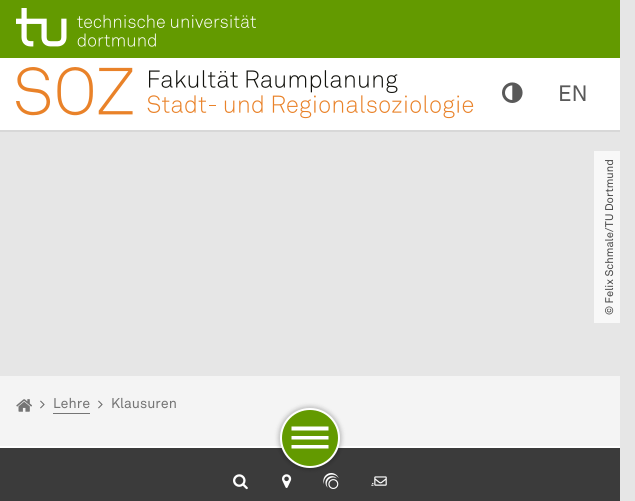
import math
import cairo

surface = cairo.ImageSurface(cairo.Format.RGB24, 635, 501)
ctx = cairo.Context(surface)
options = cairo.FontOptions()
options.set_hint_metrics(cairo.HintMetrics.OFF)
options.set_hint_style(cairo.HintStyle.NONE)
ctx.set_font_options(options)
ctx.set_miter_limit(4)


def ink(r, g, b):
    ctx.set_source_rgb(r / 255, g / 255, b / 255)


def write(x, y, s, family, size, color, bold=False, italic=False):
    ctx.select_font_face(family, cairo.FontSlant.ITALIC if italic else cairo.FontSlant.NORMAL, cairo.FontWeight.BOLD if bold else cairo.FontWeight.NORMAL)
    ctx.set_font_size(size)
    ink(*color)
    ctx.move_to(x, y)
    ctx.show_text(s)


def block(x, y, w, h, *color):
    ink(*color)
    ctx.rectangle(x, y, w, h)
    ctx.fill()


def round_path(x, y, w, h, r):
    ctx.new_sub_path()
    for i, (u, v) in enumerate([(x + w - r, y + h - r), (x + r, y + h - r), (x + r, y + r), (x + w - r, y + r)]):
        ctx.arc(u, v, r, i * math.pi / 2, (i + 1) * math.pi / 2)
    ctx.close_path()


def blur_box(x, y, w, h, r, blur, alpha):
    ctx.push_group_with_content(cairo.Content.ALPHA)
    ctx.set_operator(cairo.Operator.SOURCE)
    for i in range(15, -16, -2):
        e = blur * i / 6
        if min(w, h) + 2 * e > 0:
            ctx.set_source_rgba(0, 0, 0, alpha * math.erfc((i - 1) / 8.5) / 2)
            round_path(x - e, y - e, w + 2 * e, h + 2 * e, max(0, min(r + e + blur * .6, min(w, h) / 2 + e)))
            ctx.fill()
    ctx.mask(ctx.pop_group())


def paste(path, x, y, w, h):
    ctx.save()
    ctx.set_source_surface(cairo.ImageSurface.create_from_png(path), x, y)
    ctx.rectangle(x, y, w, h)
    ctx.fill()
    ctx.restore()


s1 = dict(family="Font", size=11, color=(69, 69, 69))
s2 = dict(family="Font", size=14, color=(117, 117, 117))

ink(230, 230, 230)
ctx.paint()
block(0, 0, 620, 58, 99, 154, 0)
paste("pic1.png", 16, 8, 240, 39)
block(0, 58, 620, 72, 255, 255, 255)
block(0, 130, 620, 2, 216, 216, 216)
paste("pic2.png", 16, 67, 458, 52)
paste("pic3.png", 502, 82, 21, 21)
paste("pic4.png", 560, 85, 26, 16)
block(594, 151, 26, 172, 248, 248, 248)
ctx.save()
ctx.translate(613, 315)
ctx.rotate(-90 * math.pi / 180)
write(0, 0, "© Felix Schmale/TU Dortmund", **s1)
ctx.restore()
block(0, 376, 620, 70, 244, 244, 244)
paste("pic5.png", 16, 399, 16, 13)
paste("pic6.png", 40, 400, 5, 9)
write(53, 408, "Lehre", **s2)
block(53, 413, 37, 1, 117, 117, 117)
paste("pic6.png", 98, 400, 5, 9)
write(111, 408, "Klausuren", **s2)
block(0, 448, 620, 53, 59, 59, 59)
block(0, 446, 620, 2, 255, 255, 255)
paste("pic8.png", 282, 474, 10, 14)
paste("pic9.png", 323, 473, 16, 16)
ink(0, 0, 0)
blur_box(278, 406, 64, 64, 32, 2, 0.2)
ink(99, 154, 0)
ctx.arc(310, 438, 29, 0, 2 * math.pi)
ctx.fill_preserve()
ink(255, 255, 255)
ctx.stroke()
ctx.new_path()
ctx.move_to(291.5, 426.5)
ctx.line_to(328.5, 426.5)
ctx.line_to(328.5, 430.5)
ctx.line_to(291.5, 430.5)
ctx.close_path()
ctx.move_to(291.5, 436)
ctx.line_to(328.5, 436)
ctx.line_to(328.5, 439.5)
ctx.line_to(291.5, 439.5)
ctx.close_path()
ctx.move_to(291.5, 445)
ctx.line_to(328.5, 445)
ctx.line_to(328.5, 448.5)
ctx.line_to(291.5, 448.5)
ctx.close_path()
ctx.fill()
paste("pic7.png", 233, 474, 15, 16)
paste("pic10.png", 371, 476, 16, 10)
surface.write_to_png("screenshot.png")
